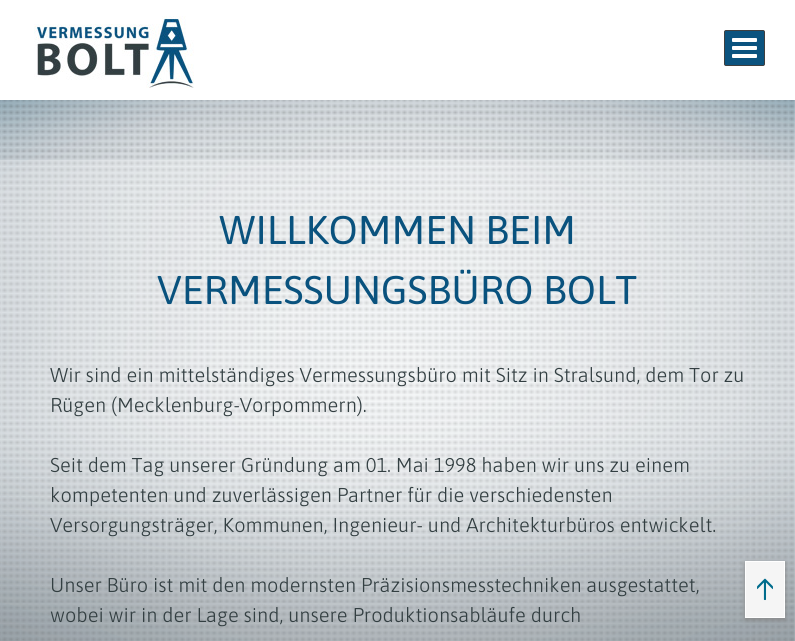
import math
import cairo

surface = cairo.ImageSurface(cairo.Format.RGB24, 795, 641)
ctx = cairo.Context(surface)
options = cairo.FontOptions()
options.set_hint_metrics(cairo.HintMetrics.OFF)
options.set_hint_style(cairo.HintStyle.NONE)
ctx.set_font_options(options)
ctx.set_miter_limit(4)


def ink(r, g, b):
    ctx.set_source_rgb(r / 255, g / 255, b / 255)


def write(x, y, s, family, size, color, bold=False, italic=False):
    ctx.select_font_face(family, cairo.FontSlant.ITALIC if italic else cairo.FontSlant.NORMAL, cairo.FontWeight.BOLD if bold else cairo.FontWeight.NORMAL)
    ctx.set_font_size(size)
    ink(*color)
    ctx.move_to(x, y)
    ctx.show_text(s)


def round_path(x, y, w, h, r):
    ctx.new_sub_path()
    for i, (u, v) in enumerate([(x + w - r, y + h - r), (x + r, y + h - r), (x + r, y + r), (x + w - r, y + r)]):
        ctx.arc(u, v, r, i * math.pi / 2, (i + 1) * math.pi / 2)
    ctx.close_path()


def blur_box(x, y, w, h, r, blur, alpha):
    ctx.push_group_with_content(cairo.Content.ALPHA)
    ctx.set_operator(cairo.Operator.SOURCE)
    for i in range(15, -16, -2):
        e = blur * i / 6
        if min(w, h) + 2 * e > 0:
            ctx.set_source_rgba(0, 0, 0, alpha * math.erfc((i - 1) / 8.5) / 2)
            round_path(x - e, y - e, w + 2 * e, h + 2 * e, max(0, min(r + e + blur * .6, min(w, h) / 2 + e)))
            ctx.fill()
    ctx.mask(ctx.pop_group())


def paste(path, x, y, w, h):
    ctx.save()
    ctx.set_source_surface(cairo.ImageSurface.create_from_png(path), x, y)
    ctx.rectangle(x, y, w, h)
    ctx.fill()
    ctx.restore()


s1 = dict(family="Asap", size=40, color=(9, 82, 126))
s2 = dict(family="Asap Light", size=20, color=(51, 63, 66))
s3 = dict(family="Asap", size=30, color=(0, 108, 140))

ink(255, 255, 255)
ctx.paint()
paste("pic1.png", 0, 100, 795, 541)
paste("pic2.png", 34, 16, 160, 72)
ink(11, 83, 127)
round_path(724.5, 30.5, 40, 35, 1.5)
ctx.fill_preserve()
ink(63, 63, 63)
ctx.set_line_width(1)
ctx.stroke()
ink(255, 255, 255)
round_path(732, 38, 25, 4, 1)
ctx.fill()
round_path(732, 46, 25, 4, 1)
ctx.fill()
round_path(732, 54, 25, 4, 1)
ctx.fill()
ctx.set_source_rgba(1, 1, 1, 0.25)
ctx.rectangle(0, 160, 795, 481)
ctx.fill()
write(219, 244, "WILLKOMMEN BEIM", **s1)
write(157, 304, "VERMESSUNGSBÜRO BOLT", **s1)
write(50, 382, "Wir sind ein mittelständiges Vermessungsbüro mit Sitz in Stralsund, dem Tor zu", **s2)
write(50, 412, "Rügen (Mecklenburg-Vorpommern).", **s2)
write(50, 472, "Seit dem Tag unserer Gründung am 01. Mai 1998 haben wir uns zu einem", **s2)
write(50, 502, "kompetenten und zuverlässigen Partner für die verschiedensten", **s2)
write(50, 532, "Versorgungsträger, Kommunen, Ingenieur- und Architekturbüros entwickelt.", **s2)
write(50, 592, "Unser Büro ist mit den modernsten Präzisionsmesstechniken ausgestattet,", **s2)
write(50, 622, "wobei wir in der Lage sind, unsere Produktionsabläufe durch", **s2)
ink(136, 136, 136)
blur_box(745, 563, 40, 57, 0, 2.5, 1)
ink(245, 245, 245)
ctx.rectangle(745.5, 561.5, 39, 56)
ctx.fill_preserve()
ink(255, 255, 255)
ctx.stroke()
write(756, 600, "↑", **s3)
surface.write_to_png("screenshot.png")
